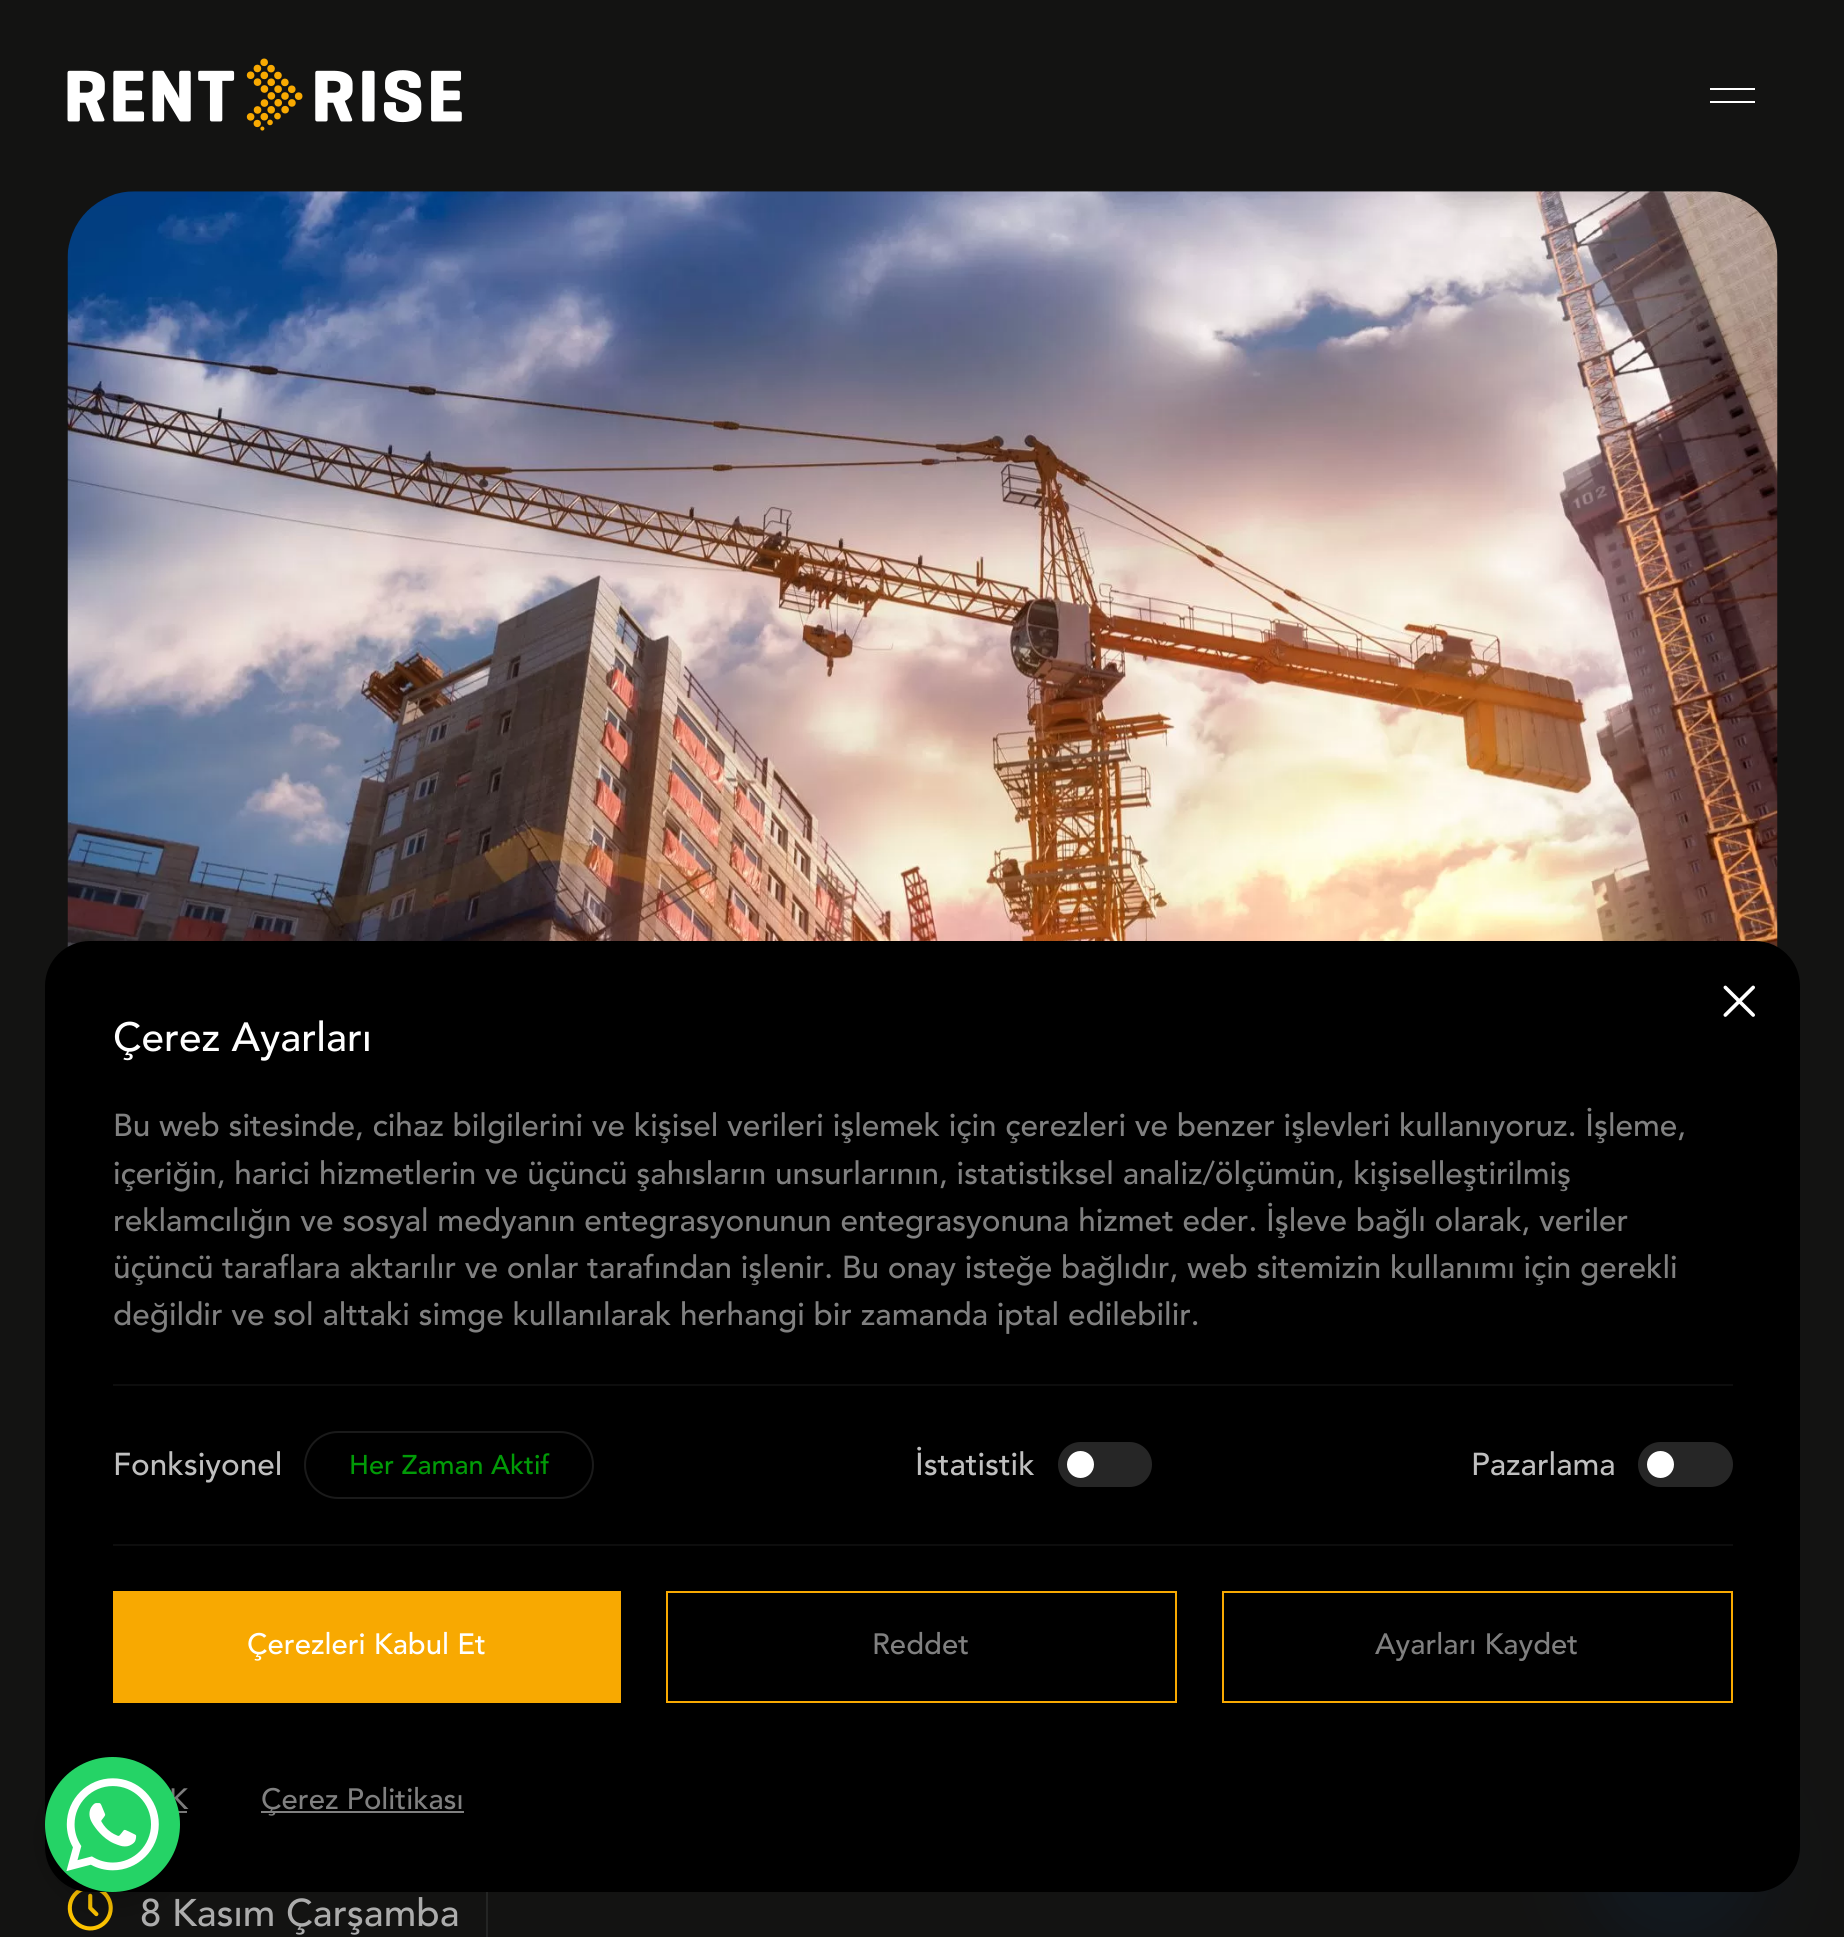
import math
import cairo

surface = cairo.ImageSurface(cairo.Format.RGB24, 1844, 1937)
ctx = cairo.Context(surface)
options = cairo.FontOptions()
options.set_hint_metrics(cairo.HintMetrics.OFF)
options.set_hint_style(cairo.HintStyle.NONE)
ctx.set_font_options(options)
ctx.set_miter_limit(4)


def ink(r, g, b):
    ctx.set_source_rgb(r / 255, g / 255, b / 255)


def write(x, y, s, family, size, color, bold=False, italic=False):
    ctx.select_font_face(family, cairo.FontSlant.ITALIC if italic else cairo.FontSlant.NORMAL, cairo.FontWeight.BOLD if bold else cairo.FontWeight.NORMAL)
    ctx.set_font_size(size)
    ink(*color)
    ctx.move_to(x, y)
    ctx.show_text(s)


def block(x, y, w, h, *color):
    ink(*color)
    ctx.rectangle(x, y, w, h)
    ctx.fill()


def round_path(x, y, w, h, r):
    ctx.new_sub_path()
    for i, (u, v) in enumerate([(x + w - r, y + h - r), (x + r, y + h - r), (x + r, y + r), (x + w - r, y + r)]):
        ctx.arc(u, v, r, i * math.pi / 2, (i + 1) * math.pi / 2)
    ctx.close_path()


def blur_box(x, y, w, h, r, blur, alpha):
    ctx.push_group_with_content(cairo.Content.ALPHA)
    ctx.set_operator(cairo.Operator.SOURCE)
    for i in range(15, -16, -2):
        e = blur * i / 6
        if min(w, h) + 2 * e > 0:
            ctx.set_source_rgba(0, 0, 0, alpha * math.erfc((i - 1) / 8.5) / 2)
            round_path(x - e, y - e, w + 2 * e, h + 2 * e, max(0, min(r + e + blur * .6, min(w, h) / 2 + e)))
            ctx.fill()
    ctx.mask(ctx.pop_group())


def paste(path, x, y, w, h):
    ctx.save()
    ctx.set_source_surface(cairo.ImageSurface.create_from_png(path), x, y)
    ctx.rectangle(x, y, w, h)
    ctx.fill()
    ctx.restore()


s1 = dict(family="Avenir Medium", size=40.5, color=(255, 255, 255))
s2 = dict(family="Avenir Medium", size=31.5, color=(128, 128, 128))
s3 = dict(family="Avenir Medium", size=31.5, color=(191, 191, 191))
s4 = dict(family="Avenir Medium", size=27, color=(1, 155, 7))
s5 = dict(family="Avenir Medium", size=29.25, color=(255, 255, 255))
s6 = dict(family="Avenir Medium", size=29.25, color=(128, 128, 128))
s7 = dict(family="Avenir Medium", size=38.25, color=(172, 172, 172))

ink(19, 19, 18)
ctx.paint()
paste("pic1.png", 67, 58, 395, 73)
block(1710, 88, 45, 2, 255, 255, 255)
block(1710, 101, 45, 2, 255, 255, 255)
paste("pic4.png", 67, 191, 1711, 757)
paste("pic5.png", 67, 1890, 46, 41)
block(486, 1886, 2, 51, 36, 37, 36)
ink(0, 75, 165)
blur_box(1586, 1773, 180, 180, 90, 37.5, 0.09)
ink(0, 0, 0)
round_path(45, 941, 1755, 951, 45)
ctx.fill()
paste("pic2.png", 1723, 985, 32, 32)
write(113, 1051, "Çerez Ayarları", **s1)
write(113, 1136, "Bu web sitesinde, cihaz bilgilerini ve kişisel verileri işlemek için çerezleri ve benzer işlevleri kullanıyoruz. İşleme,", **s2)
write(113, 1184, "içeriğin, harici hizmetlerin ve üçüncü şahısların unsurlarının, istatistiksel analiz/ölçümün, kişiselleştirilmiş", **s2)
write(113, 1231, "reklamcılığın ve sosyal medyanın entegrasyonunun entegrasyonuna hizmet eder. İşleve bağlı olarak, veriler", **s2)
write(113, 1278, "üçüncü taraflara aktarılır ve onlar tarafından işlenir. Bu onay isteğe bağlıdır, web sitemizin kullanımı için gerekli", **s2)
write(113, 1325, "değildir ve sol alttaki simge kullanılarak herhangi bir zamanda iptal edilebilir.", **s2)
block(113, 1384, 1620, 2, 13, 13, 13)
write(113, 1475, "Fonksiyonel", **s3)
round_path(305, 1432, 288, 66, 33)
ink(26, 26, 26)
ctx.stroke()
write(349, 1474, "Her Zaman Aktif", **s4)
write(915, 1475, "İstatistik", **s3)
ink(38, 38, 38)
round_path(1058, 1442, 94, 45, 22.5)
ctx.fill()
ink(255, 255, 255)
ctx.arc(1080.5, 1464.5, 13.5, 0, 2 * math.pi)
ctx.fill()
write(1471, 1475, "Pazarlama", **s3)
ink(38, 38, 38)
round_path(1638, 1442, 95, 45, 22.5)
ctx.fill()
ink(255, 255, 255)
ctx.arc(1660.5, 1464.5, 13.5, 0, 2 * math.pi)
ctx.fill()
block(113, 1544, 1620, 2, 13, 13, 13)
block(113, 1591, 508, 112, 248, 169, 1)
write(247, 1654, "Çerezleri Kabul Et", **s5)
ctx.rectangle(667, 1592, 509, 110)
ink(248, 169, 1)
ctx.stroke()
write(872, 1654, "Reddet", **s6)
ctx.rectangle(1223, 1592, 509, 110)
ink(248, 169, 1)
ctx.stroke()
write(1375, 1654, "Ayarları Kaydet", **s6)
write(169, 1809, "K", **s6)
block(178, 1811, 9, 2, 128, 128, 128)
block(261, 1811, 203, 2, 128, 128, 128)
write(261, 1809, "Çerez Politikası", **s6)
ink(0, 0, 0)
blur_box(41, 1766, 144, 144, 72, 9, 0.15)
ink(37, 211, 102)
ctx.arc(112.5, 1824.5, 67.5, 0, 2 * math.pi)
ctx.fill()
paste("pic3.png", 66, 1778, 93, 93)
write(140, 1926, "8 Kasım Çarşamba", **s7)
surface.write_to_png("screenshot.png")
